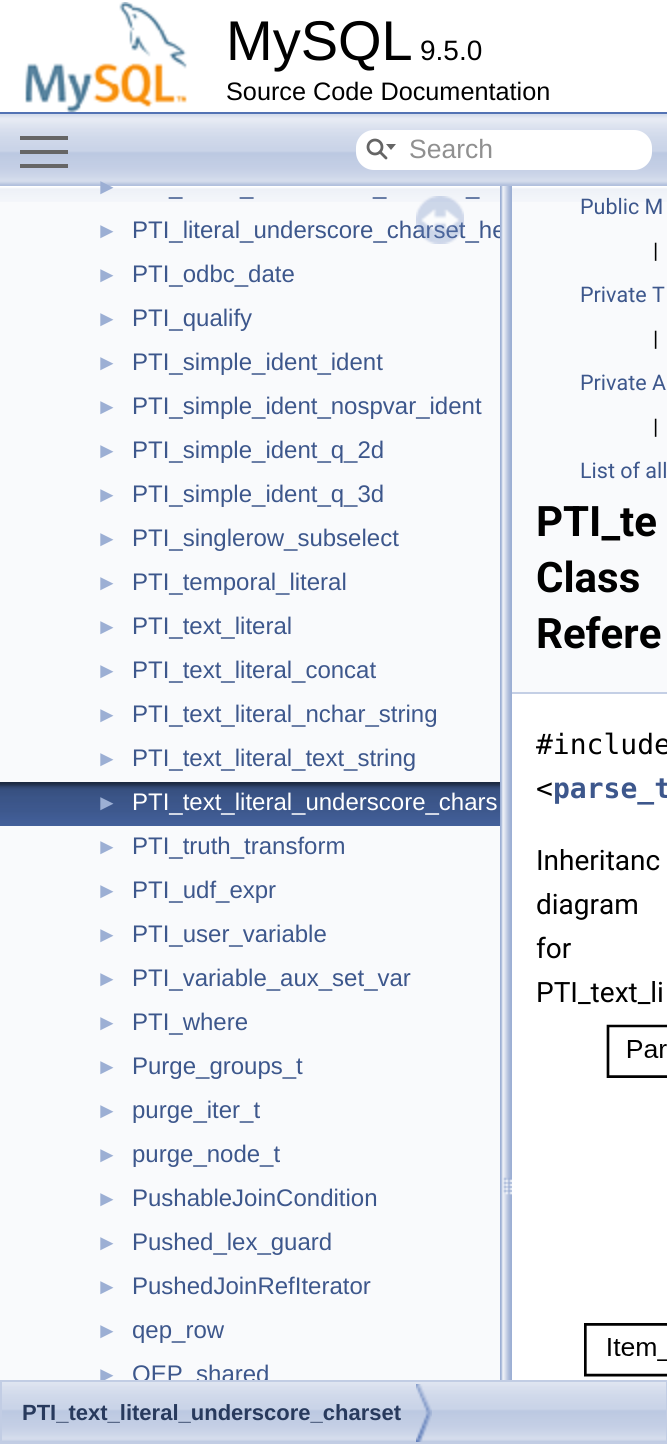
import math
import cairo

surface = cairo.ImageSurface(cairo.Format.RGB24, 667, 1444)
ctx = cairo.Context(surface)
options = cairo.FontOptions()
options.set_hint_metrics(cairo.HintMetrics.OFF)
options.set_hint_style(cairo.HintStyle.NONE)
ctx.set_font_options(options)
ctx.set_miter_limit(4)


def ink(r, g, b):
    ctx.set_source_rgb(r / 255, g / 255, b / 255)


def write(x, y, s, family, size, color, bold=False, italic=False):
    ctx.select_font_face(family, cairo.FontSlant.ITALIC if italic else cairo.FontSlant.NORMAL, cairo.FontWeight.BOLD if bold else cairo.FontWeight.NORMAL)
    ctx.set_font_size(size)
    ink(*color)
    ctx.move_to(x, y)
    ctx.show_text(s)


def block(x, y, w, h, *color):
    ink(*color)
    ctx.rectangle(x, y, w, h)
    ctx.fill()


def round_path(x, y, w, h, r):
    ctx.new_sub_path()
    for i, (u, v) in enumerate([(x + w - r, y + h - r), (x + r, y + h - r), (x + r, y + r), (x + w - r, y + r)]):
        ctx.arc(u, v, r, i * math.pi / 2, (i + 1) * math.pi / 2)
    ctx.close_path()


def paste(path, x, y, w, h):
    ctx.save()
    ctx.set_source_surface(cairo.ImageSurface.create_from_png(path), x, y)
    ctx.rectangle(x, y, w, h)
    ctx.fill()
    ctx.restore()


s1 = dict(family="Liberation Sans", size=56, color=(0, 0, 0))
s2 = dict(family="Liberation Sans", size=28, color=(0, 0, 0))
s3 = dict(family="Liberation Sans", size=25.25, color=(0, 0, 0))
s4 = dict(family="Liberation Sans", size=26.5, color=(144, 144, 144))
s5 = dict(family="Liberation Sans", size=22, color=(156, 175, 212))
s6 = dict(family="Liberation Sans", size=24, color=(61, 87, 140))
s7 = dict(family="Liberation Sans", size=24, color=(255, 255, 255))
s8 = dict(family="Roboto", size=21.5, color=(61, 87, 140))
s9 = dict(family="Roboto", size=21.5, color=(0, 0, 0))
s10 = dict(family="Roboto", size=42, color=(0, 0, 0), bold=True)
s11 = dict(family="DejaVu Sans Mono", size=28, color=(0, 0, 0))
s12 = dict(family="DejaVu Sans Mono", size=28, color=(61, 87, 140), bold=True)
s13 = dict(family="Roboto", size=28, color=(0, 0, 0))
s14 = dict(family="Liberation Sans", size=22, color=(40, 58, 93), bold=True)

ink(255, 255, 255)
ctx.paint()
block(0, 112, 667, 2, 83, 115, 180)
paste("pic1.png", 25, 2, 162, 110)
write(226, 60, "MySQL", **s1)
write(420, 60, "9.5.0", **s2)
write(226, 100, "Source Code Documentation", **s3)
paste("pic2.png", 0, 114, 667, 72)
block(20, 150, 48, 4, 102, 102, 102)
block(20, 136, 48, 4, 102, 102, 102)
block(20, 164, 48, 4, 102, 102, 102)
ink(255, 255, 255)
round_path(356, 130, 296, 40, 18)
ctx.fill()
ctx.arc(375, 147, 7, 0, 2 * math.pi)
ink(101, 101, 101)
ctx.set_line_width(2.8)
ctx.stroke()
ctx.new_path()
ctx.move_to(386, 144)
ctx.line_to(391, 150)
ctx.line_to(396, 144)
ctx.close_path()
ctx.fill()
ctx.new_path()
ctx.move_to(380, 152)
ctx.line_to(386, 158)
ctx.set_line_cap(cairo.LineCap.ROUND)
ctx.stroke()
write(409, 158, "Search", **s4)
block(0, 202, 500, 1178, 249, 250, 252)
paste("pic3.png", 0, 186, 500, 16)
write(96, 194, "►", **s5)
write(169, 194, "_", **s6)
write(240, 194, "_", **s6)
write(373, 194, "_", **s6)
write(466, 194, "_", **s6)
write(96, 238, "►", **s5)
write(132, 238, "PTI_literal_underscore_charset_he", **s6)
write(96, 282, "►", **s5)
write(132, 282, "PTI_odbc_date", **s6)
write(96, 326, "►", **s5)
write(132, 326, "PTI_qualify", **s6)
write(96, 370, "►", **s5)
write(132, 370, "PTI_simple_ident_ident", **s6)
write(96, 414, "►", **s5)
write(132, 414, "PTI_simple_ident_nospvar_ident", **s6)
write(96, 458, "►", **s5)
write(132, 458, "PTI_simple_ident_q_2d", **s6)
write(96, 502, "►", **s5)
write(132, 502, "PTI_simple_ident_q_3d", **s6)
write(96, 546, "►", **s5)
write(132, 546, "PTI_singlerow_subselect", **s6)
write(96, 590, "►", **s5)
write(132, 590, "PTI_temporal_literal", **s6)
write(96, 634, "►", **s5)
write(132, 634, "PTI_text_literal", **s6)
write(96, 678, "►", **s5)
write(132, 678, "PTI_text_literal_concat", **s6)
write(96, 722, "►", **s5)
write(132, 722, "PTI_text_literal_nchar_string", **s6)
write(96, 766, "►", **s5)
write(132, 766, "PTI_text_literal_text_string", **s6)
paste("pic4.png", 0, 782, 500, 44)
write(96, 810, "►", **s5)
write(132, 810, "PTI_text_literal_underscore_chars", **s7)
write(96, 854, "►", **s5)
write(132, 854, "PTI_truth_transform", **s6)
write(96, 898, "►", **s5)
write(132, 898, "PTI_udf_expr", **s6)
write(96, 942, "►", **s5)
write(132, 942, "PTI_user_variable", **s6)
write(96, 986, "►", **s5)
write(132, 986, "PTI_variable_aux_set_var", **s6)
write(96, 1030, "►", **s5)
write(132, 1030, "PTI_where", **s6)
write(96, 1074, "►", **s5)
write(132, 1074, "Purge_groups_t", **s6)
write(96, 1118, "►", **s5)
write(132, 1118, "purge_iter_t", **s6)
write(96, 1162, "►", **s5)
write(132, 1162, "purge_node_t", **s6)
write(96, 1206, "►", **s5)
write(132, 1206, "PushableJoinCondition", **s6)
write(96, 1250, "►", **s5)
write(132, 1250, "Pushed_lex_guard", **s6)
write(96, 1294, "►", **s5)
write(132, 1294, "PushedJoinRefIterator", **s6)
write(96, 1338, "►", **s5)
write(132, 1338, "qep_row", **s6)
ctx.save()
ctx.rectangle(0, 186, 500, 1194)
ctx.clip()
write(96, 1382, "►", **s5)
write(132, 1382, "QEP_shared", **s6)
ctx.restore()
paste("pic5.png", 416, 196, 48, 48)
paste("pic6.png", 500, 186, 12, 1194)
block(512, 202, 155, 490, 249, 250, 252)
paste("pic7.png", 512, 186, 155, 16)
block(512, 692, 155, 2, 196, 207, 229)
write(580, 214, "Public M", **s8)
write(653, 258, "|", **s9)
write(580, 302, "Private T", **s8)
write(653, 346, "|", **s9)
write(580, 390, "Private A", **s8)
write(653, 434, "|", **s9)
write(580, 478, "List of all", **s8)
write(536, 536, "PTI_te", **s10)
write(536, 592, "Class", **s10)
write(536, 648, "Refere", **s10)
write(536, 754, "#include", **s11)
write(536, 798, "<", **s11)
write(553, 798, "parse_t", **s12)
write(536, 870, "Inheritanc", **s13)
write(536, 914, "diagram", **s13)
write(536, 958, "for", **s13)
write(536, 1002, "PTI_text_li", **s13)
paste("pic8.png", 584, 1024, 83, 353)
paste("pic9.png", 2, 1382, 664, 60)
ctx.rectangle(1, 1381, 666, 62)
ink(194, 205, 228)
ctx.set_line_width(2)
ctx.set_line_cap(cairo.LineCap.BUTT)
ctx.stroke()
paste("pic10.png", 416, 1384, 16, 58)
write(22, 1420, "PTI_text_literal_underscore_charset", **s14)
surface.write_to_png("screenshot.png")
